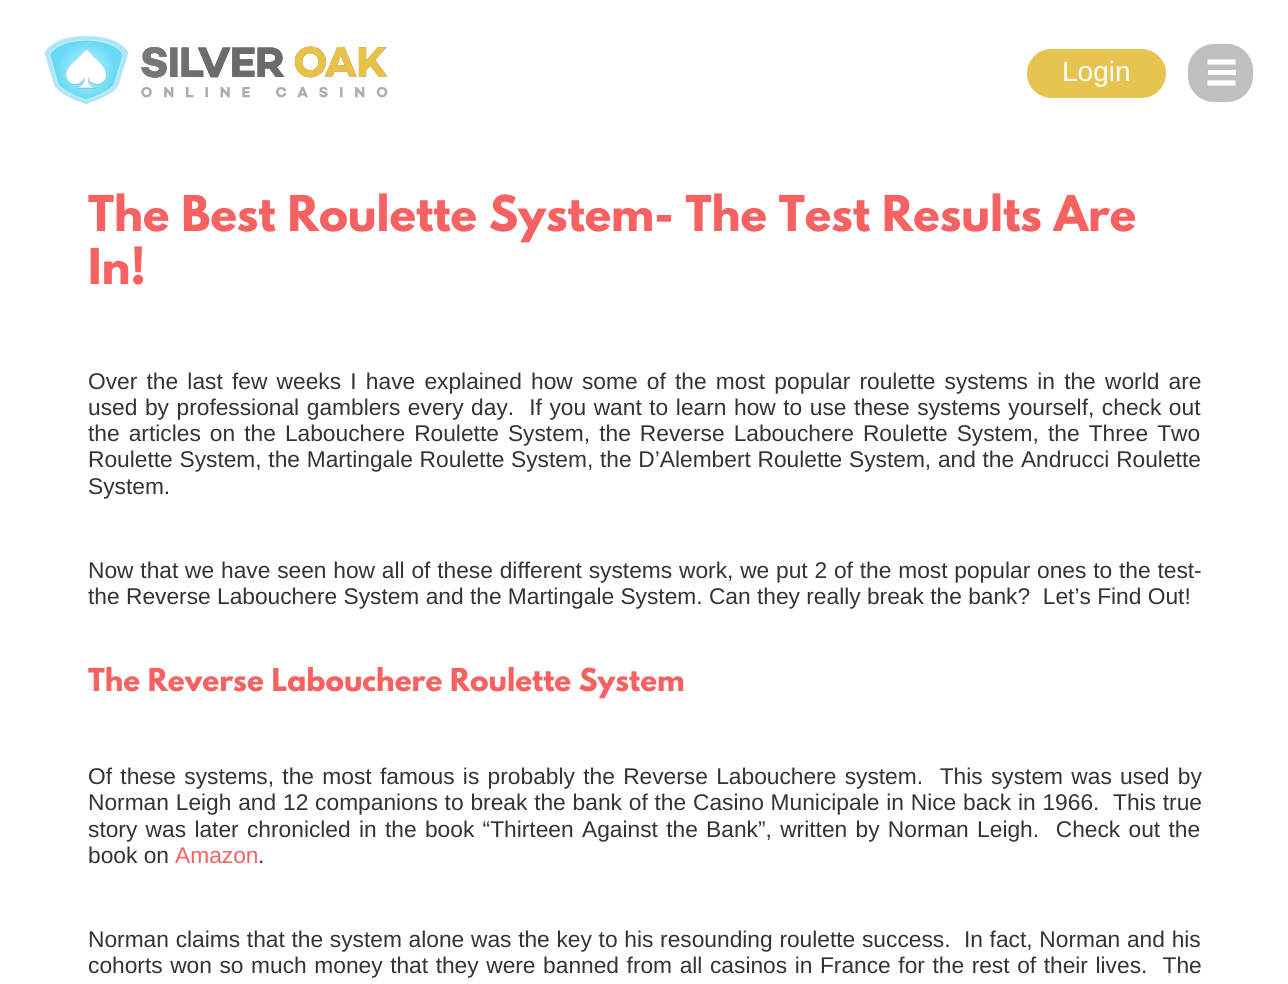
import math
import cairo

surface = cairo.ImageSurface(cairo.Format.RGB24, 1288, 984)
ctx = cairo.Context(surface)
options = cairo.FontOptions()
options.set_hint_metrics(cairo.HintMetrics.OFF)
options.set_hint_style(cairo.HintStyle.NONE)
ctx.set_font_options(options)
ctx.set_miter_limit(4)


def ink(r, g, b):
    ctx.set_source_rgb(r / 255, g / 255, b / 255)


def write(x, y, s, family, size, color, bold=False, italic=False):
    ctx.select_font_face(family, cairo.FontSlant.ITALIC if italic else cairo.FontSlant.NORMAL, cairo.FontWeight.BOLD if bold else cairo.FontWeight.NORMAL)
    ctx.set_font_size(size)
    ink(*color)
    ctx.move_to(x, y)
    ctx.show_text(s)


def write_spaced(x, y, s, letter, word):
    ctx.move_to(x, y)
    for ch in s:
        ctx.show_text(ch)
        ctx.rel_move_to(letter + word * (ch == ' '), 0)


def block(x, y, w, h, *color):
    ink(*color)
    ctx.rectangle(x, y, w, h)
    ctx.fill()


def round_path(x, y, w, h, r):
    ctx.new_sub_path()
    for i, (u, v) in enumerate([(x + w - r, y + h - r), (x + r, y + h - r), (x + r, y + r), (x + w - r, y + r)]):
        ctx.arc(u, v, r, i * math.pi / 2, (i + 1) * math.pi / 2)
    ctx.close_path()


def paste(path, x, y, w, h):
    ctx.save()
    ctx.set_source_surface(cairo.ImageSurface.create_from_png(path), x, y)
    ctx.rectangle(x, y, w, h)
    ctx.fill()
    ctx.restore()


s1 = dict(family="Liberation Sans", size=28, color=(255, 255, 255))
s2 = dict(family="League Spartan", size=43.75, color=(246, 98, 98), bold=True)
s3 = dict(family="Liberation Sans", size=22.75, color=(51, 51, 51))
s4 = dict(family="League Spartan", size=28, color=(246, 98, 98), bold=True)
s5 = dict(family="Liberation Sans", size=22.75, color=(246, 98, 98))

ink(255, 255, 255)
ctx.paint()
paste("pic1.png", 44, 35, 344, 70)
ink(231, 196, 80)
round_path(1027, 49, 139, 49, 24.5)
ctx.fill()
write(1062, 81, "Login", **s1)
ink(191, 191, 190)
round_path(1188, 44, 65, 58, 26)
ctx.fill()
ctx.new_path()
ctx.move_to(1207.5, 62)
ctx.line_to(1235.5, 62)
ctx.move_to(1207.5, 83)
ctx.line_to(1235.5, 83)
ink(255, 255, 255)
ctx.set_line_width(5.2)
ctx.stroke()
block(1208, 70, 28, 5, 255, 255, 255)
write(88, 231, "The Best Roulette System- The Test Results Are", **s2)
write(88, 284, "In!", **s2)
ctx.select_font_face("Liberation Sans")
ctx.set_font_size(22.75)
ink(51, 51, 51)
write_spaced(88, 389, "Over the last few weeks I have explained how some of the most popular roulette systems in the world are", 0, 2.9)
write_spaced(88, 415, "used by professional gamblers every day.  If you want to learn how to use these systems yourself, check out", 0, 1.25)
write_spaced(88, 441, "the articles on the Labouchere Roulette System, the Reverse Labouchere Roulette System, the Three Two", 0, 2.75)
write_spaced(88, 467, "Roulette System, the Martingale Roulette System, the D’Alembert Roulette System, and the Andrucci Roulette", 0, 0.4)
write(88, 494, "System.", **s3)
write_spaced(88, 578, "Now that we have seen how all of these different systems work, we put 2 of the most popular ones to the test-", 0, 0.5)
write(88, 604, "the Reverse Labouchere System and the Martingale System. Can they really break the bank?  Let’s Find Out!", **s3)
ctx.save()
ctx.rectangle(88, 368, 1113, 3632)
ctx.clip()
write(88, 691, "The Reverse Labouchere Roulette System", **s4)
ctx.restore()
write_spaced(88, 784, "Of these systems, the most famous is probably the Reverse Labouchere system.  This system was used by", 0, 2)
write_spaced(88, 810, "Norman Leigh and 12 companions to break the bank of the Casino Municipale in Nice back in 1966.  This true", 0, 0.5)
write_spaced(88, 837, "story was later chronicled in the book “Thirteen Against the Bank”, written by Norman Leigh.  Check out the", 0, 2)
write(88, 863, "book on", **s3)
write(175, 863, "Amazon", **s5)
write(258, 863, ".", **s3)
write_spaced(88, 947, "Norman claims that the system alone was the key to his resounding roulette success.  In fact, Norman and his", 0, 0.4)
write_spaced(88, 973, "cohorts won so much money that they were banned from all casinos in France for the rest of their lives.  The", 0, 1.25)
surface.write_to_png("screenshot.png")
